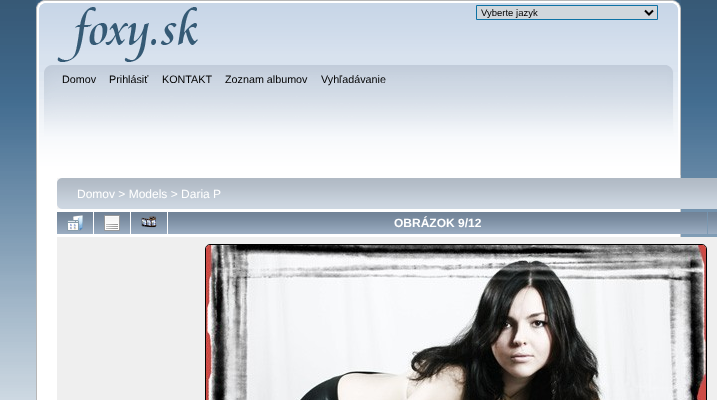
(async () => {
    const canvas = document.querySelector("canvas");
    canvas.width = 717;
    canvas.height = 400;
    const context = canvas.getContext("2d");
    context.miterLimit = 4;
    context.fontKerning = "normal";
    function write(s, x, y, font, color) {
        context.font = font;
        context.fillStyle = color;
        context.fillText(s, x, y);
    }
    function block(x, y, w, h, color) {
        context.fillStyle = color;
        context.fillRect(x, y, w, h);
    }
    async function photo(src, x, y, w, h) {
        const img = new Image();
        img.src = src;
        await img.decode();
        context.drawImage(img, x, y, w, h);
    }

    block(0, 0, 717, 400, "rgb(255, 255, 255)");
    await photo("media/1.png", 0, 0, 717, 400);
    await photo("media/2.png", 36, 0, 637, 65);
    await photo("media/3.png", 673, 0, 8, 65);
    await photo("media/4.png", 57, 7, 141, 55);
    context.fillStyle = "rgb(209, 215, 220)";
    context.beginPath();
    context.rect(476.5, 5.5, 181, 14);
    context.fill();
    context.strokeStyle = "rgb(14, 114, 164)";
    context.stroke();
    context.beginPath();
    context.moveTo(645, 10.5);
    context.lineTo(649, 14.5);
    context.lineTo(653, 10.5);
    context.strokeStyle = "rgb(0, 0, 0)";
    context.lineWidth = 2;
    context.stroke();
    write("Vyberte jazyk", 481, 16, "9.5px Liberation Sans", "rgb(0, 0, 0)");
    await photo("media/5.png", 36, 65, 631, 110);
    await photo("media/6.png", 667, 65, 14, 110);
    write("Domov", 62, 83, "10.75px Liberation Sans", "rgb(0, 0, 0)");
    write("Prihlásiť", 109, 83, "10.75px Liberation Sans", "rgb(0, 0, 0)");
    write("KONTAKT", 162, 83, "10.75px Liberation Sans", "rgb(0, 0, 0)");
    write("Zoznam albumov", 225, 83, "10.75px Liberation Sans", "rgb(0, 0, 0)");
    write("Vyhľadávanie", 321, 83, "10.75px Liberation Sans", "rgb(0, 0, 0)");
    block(37, 175, 643, 225, "rgb(255, 255, 255)");
    block(36, 175, 1, 225, "rgb(183, 183, 183)");
    block(680, 175, 1, 62, "rgb(206, 206, 206)");
    await photo("media/7.png", 57, 178, 660, 31);
    write("Domov > Models > Daria P", 77, 198, "12px Liberation Sans", "rgb(255, 255, 255)");
    await photo("media/8.png", 57, 212, 36, 22);
    await photo("media/9.png", 67, 215, 16, 16);
    await photo("media/8.png", 94, 212, 36, 22);
    await photo("media/10.png", 104, 215, 16, 16);
    await photo("media/8.png", 131, 212, 36, 22);
    await photo("media/11.png", 141, 216, 16, 12);
    await photo("media/12.png", 168, 212, 539, 22);
    write("OBRÁZOK 9/12", 394, 227, "bold 12px Liberation Sans", "rgb(255, 255, 255)");
    await photo("media/13.png", 708, 212, 9, 22);
    block(57, 237, 660, 163, "rgb(239, 239, 239)");
    context.beginPath();
    context.roundRect(205.5, 244.5, 501, 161, 4.5);
    context.lineWidth = 1;
    context.stroke();
    await photo("media/14.png", 206, 245, 500, 155);
})();
